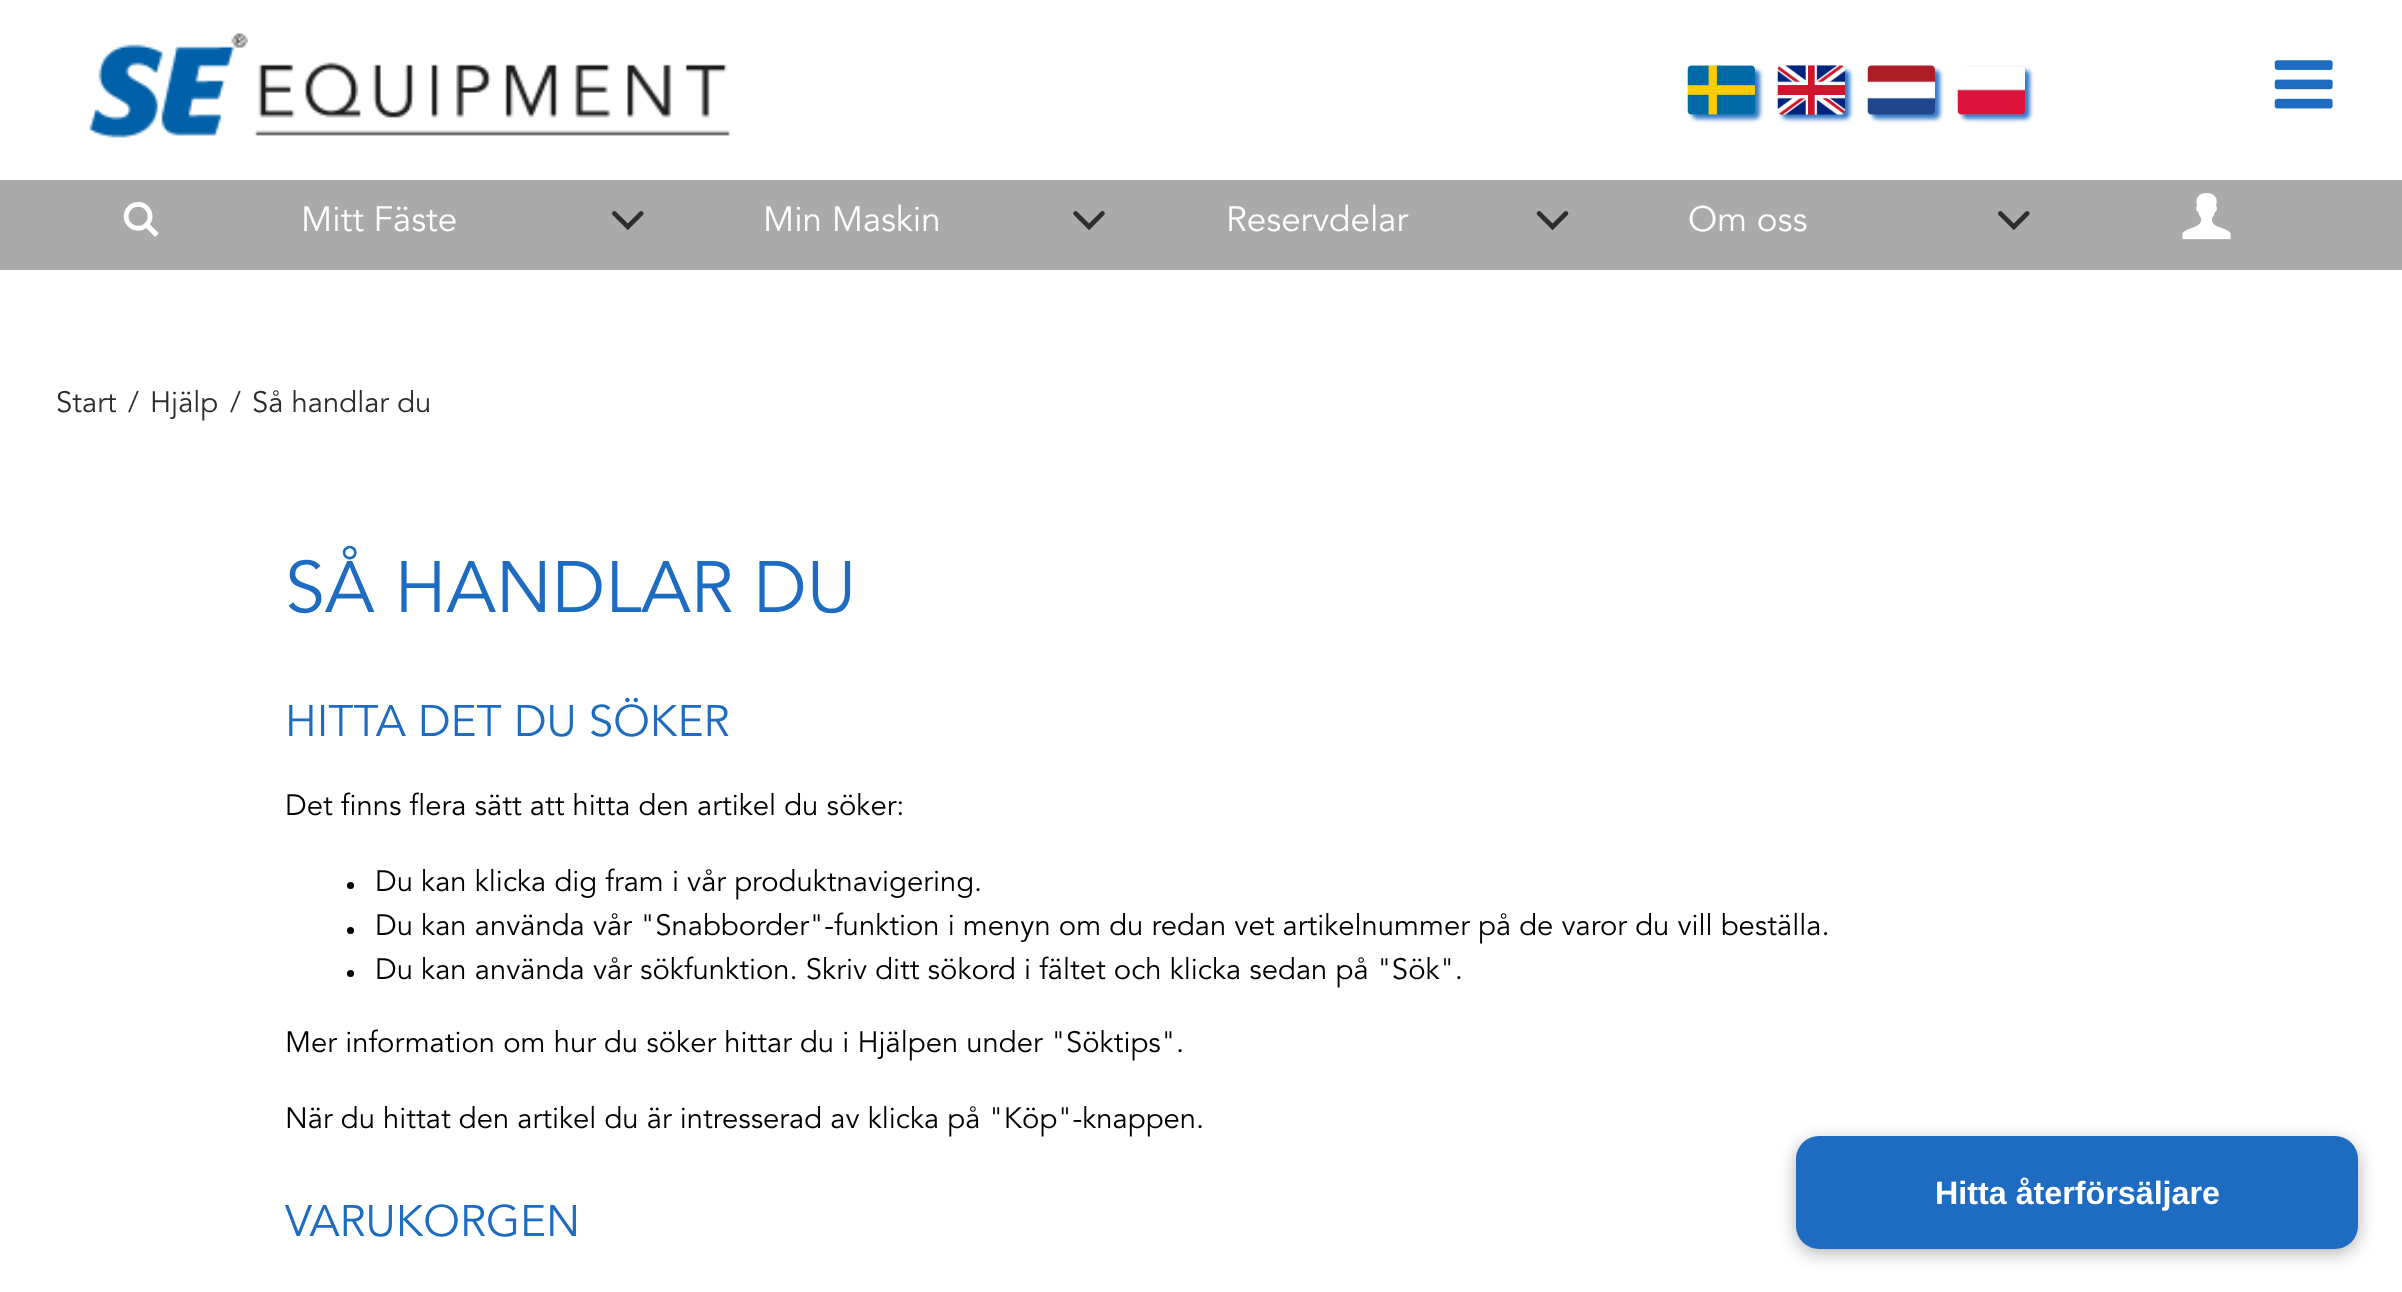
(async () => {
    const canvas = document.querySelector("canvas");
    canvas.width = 2402;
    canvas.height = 1292;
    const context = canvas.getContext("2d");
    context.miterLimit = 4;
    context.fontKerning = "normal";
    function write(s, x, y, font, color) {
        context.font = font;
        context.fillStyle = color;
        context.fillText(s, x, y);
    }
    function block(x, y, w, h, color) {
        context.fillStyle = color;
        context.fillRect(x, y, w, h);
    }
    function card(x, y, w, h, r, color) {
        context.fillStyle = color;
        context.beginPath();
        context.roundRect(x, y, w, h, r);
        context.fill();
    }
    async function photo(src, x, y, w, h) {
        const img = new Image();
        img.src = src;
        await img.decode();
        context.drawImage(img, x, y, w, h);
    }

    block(0, 0, 2402, 1292, "rgb(255, 255, 255)");
    await photo("media/1.png", 89, 33, 641, 105);
    context.fillStyle = "rgba(29, 108, 193, 0.9)";
    context.filter = "blur(2px)";
    context.beginPath();
    context.roundRect(1692, 70, 68, 49, 5);
    context.fill();
    context.filter = "none";
    await photo("media/2.png", 1687, 65, 68, 50);
    context.filter = "blur(2px)";
    context.beginPath();
    context.roundRect(1782, 70, 68, 49, 5);
    context.fill();
    context.filter = "none";
    await photo("media/3.png", 1777, 65, 68, 50);
    context.filter = "blur(2px)";
    context.beginPath();
    context.roundRect(1872, 70, 68, 49, 5);
    context.fill();
    context.filter = "none";
    await photo("media/4.png", 1867, 65, 68, 50);
    context.filter = "blur(2px)";
    context.beginPath();
    context.roundRect(1962, 70, 68, 49, 5);
    context.fill();
    context.filter = "none";
    await photo("media/5.png", 1957, 67, 68, 48);
    await photo("media/6.png", 2274, 60, 59, 49);
    block(0, 180, 2402, 90, "rgb(170, 170, 170)");
    await photo("media/7.png", 123, 202, 36, 35);
    write("Mitt Fäste", 301, 231, "35px Avenir", "rgb(255, 255, 255)");
    await photo("media/8.png", 612, 211, 32, 19);
    write("Min Maskin", 763, 231, "35px Avenir", "rgb(255, 255, 255)");
    await photo("media/9.png", 1073, 211, 32, 19);
    write("Reservdelar", 1226, 231, "35px Avenir", "rgb(255, 255, 255)");
    await photo("media/10.png", 1536, 211, 33, 19);
    write("Om oss", 1688, 231, "35px Avenir", "rgb(255, 255, 255)");
    await photo("media/8.png", 1998, 211, 32, 19);
    await photo("media/11.png", 2182, 193, 49, 47);
    write("Start", 56, 412, "29.25px Avenir", "rgb(45, 45, 45)");
    write("/", 128, 412, "29.25px Avenir", "rgb(45, 45, 45)");
    write("Hjälp", 150, 412, "29.25px Avenir", "rgb(45, 45, 45)");
    write("/", 230, 412, "29.25px Avenir", "rgb(45, 45, 45)");
    write("Så handlar du", 252, 412, "29.25px Avenir", "rgb(45, 45, 45)");
    write("SÅ HANDLAR DU", 285, 612, "72px Avenir", "rgb(29, 108, 193)");
    write("HITTA DET DU SÖKER", 285, 736, "43.9px Avenir", "rgb(29, 108, 193)");
    write("Det finns flera sätt att hitta den artikel du söker:", 285, 815, "29.25px Avenir", "rgb(0, 0, 0)");
    context.beginPath();
    context.arc(350.5, 885.5, 3.5, 0, Math.PI * 2);
    context.fill();
    write("Du kan klicka dig fram i vår produktnavigering.", 375, 891, "29.25px Avenir", "rgb(0, 0, 0)");
    context.beginPath();
    context.arc(350.5, 930.5, 3.5, 0, Math.PI * 2);
    context.fill();
    write("Du kan använda vår \"Snabborder\"-funktion i menyn om du redan vet artikelnummer på de varor du vill beställa.", 375, 935, "29.25px Avenir", "rgb(0, 0, 0)");
    context.beginPath();
    context.arc(350.5, 973.5, 3.5, 0, Math.PI * 2);
    context.fill();
    write("Du kan använda vår sökfunktion. Skriv ditt sökord i fältet och klicka sedan på \"Sök\".", 375, 979, "29.25px Avenir", "rgb(0, 0, 0)");
    write("Mer information om hur du söker hittar du i Hjälpen under \"Söktips\".", 285, 1052, "29.25px Avenir", "rgb(0, 0, 0)");
    write("När du hittat den artikel du är intresserad av klicka på \"Köp\"-knappen.", 285, 1128, "29.25px Avenir", "rgb(0, 0, 0)");
    write("VARUKORGEN", 285, 1236, "43.9px Avenir", "rgb(29, 108, 193)");
    context.fillStyle = "rgba(0, 0, 0, 0.3)";
    context.filter = "blur(9px)";
    context.beginPath();
    context.roundRect(1796, 1141, 562, 112, 23);
    context.fill();
    context.filter = "none";
    card(1796, 1136, 562, 113, 23, "rgb(29, 108, 193)");
    write("Hitta återförsäljare", 1935, 1204, "bold 32.25px Liberation Sans", "rgb(255, 255, 255)");
})();
